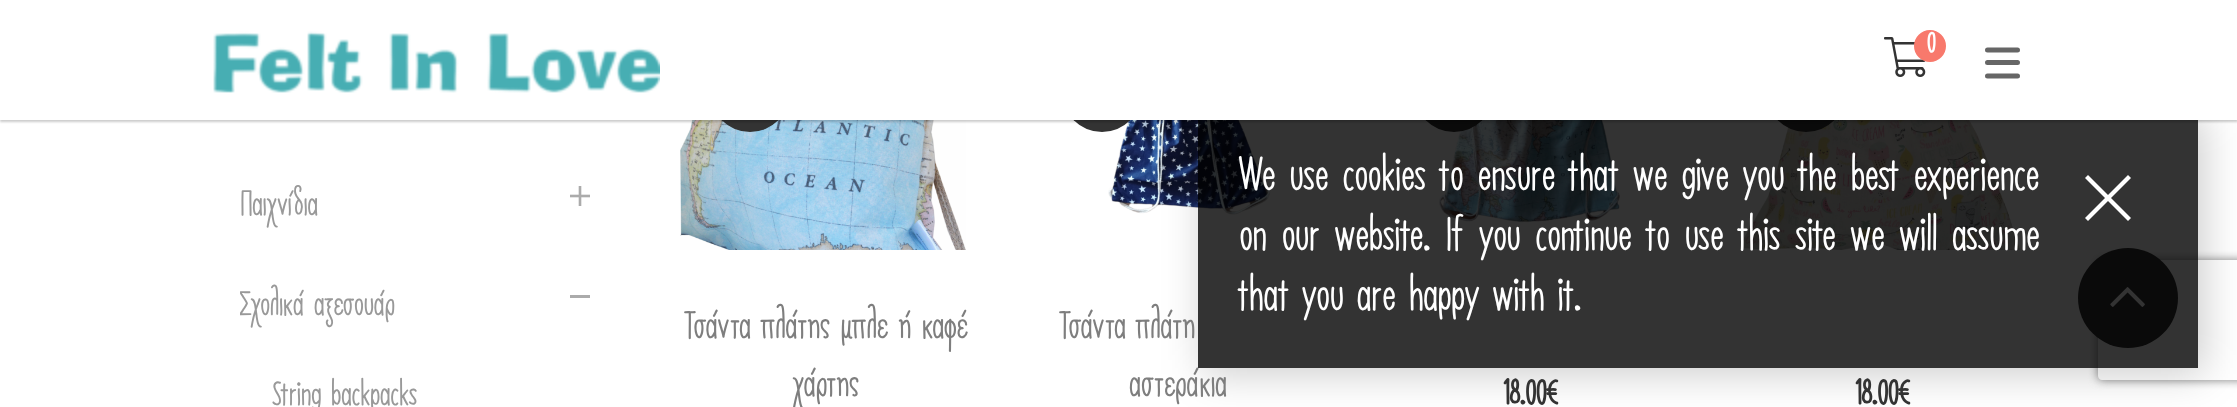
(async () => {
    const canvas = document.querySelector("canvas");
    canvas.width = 2237;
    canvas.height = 407;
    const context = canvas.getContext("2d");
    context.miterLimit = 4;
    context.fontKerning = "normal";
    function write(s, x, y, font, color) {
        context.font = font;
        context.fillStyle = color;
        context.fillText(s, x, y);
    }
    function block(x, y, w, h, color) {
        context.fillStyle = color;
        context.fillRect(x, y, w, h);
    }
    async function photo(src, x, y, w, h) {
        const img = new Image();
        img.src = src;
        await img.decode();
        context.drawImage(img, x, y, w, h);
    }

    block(0, 0, 2237, 407, "rgb(255, 255, 255)");
    await photo("media/5.png", 1108, 120, 163, 95);
    await photo("media/6.png", 1439, 120, 181, 103);
    context.fillStyle = "rgb(51, 51, 51)";
    context.beginPath();
    context.arc(1454, 92, 40, 0, Math.PI * 2);
    context.fill();
    await photo("media/7.png", 1741, 120, 279, 130);
    context.beginPath();
    context.arc(1806, 92, 40, 0, Math.PI * 2);
    context.fill();
    context.save();
    context.beginPath();
    context.moveTo(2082, 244);
    context.lineTo(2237, 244);
    context.lineTo(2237, 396);
    context.lineTo(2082, 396);
    context.closePath();
    context.moveTo(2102, 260);
    context.lineTo(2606, 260);
    context.bezierCurveTo(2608, 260, 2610, 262, 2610, 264);
    context.lineTo(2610, 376);
    context.bezierCurveTo(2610, 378, 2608, 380, 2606, 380);
    context.lineTo(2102, 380);
    context.bezierCurveTo(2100, 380, 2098, 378, 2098, 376);
    context.lineTo(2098, 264);
    context.bezierCurveTo(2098, 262, 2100, 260, 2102, 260);
    context.closePath();
    context.clip("evenodd");
    context.fillStyle = "rgb(128, 128, 128)";
    context.filter = "blur(5px)";
    context.beginPath();
    context.roundRect(2098, 260, 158, 120, 4);
    context.fill();
    context.filter = "none";
    context.restore();
    context.beginPath();
    context.arc(2128, 298, 50, 0, Math.PI * 2);
    context.fill();
    await photo("media/8.png", 2110, 287, 35, 20);
    context.save();
    context.beginPath();
    context.moveTo(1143, 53);
    context.lineTo(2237, 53);
    context.lineTo(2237, 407);
    context.lineTo(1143, 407);
    context.closePath();
    context.moveTo(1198, 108);
    context.lineTo(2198, 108);
    context.lineTo(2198, 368);
    context.lineTo(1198, 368);
    context.closePath();
    context.clip("evenodd");
    context.fillStyle = "rgba(0, 0, 0, 0.2)";
    context.filter = "blur(20px)";
    context.beginPath();
    context.rect(1204, 114, 1000, 260);
    context.fill();
    context.filter = "none";
    context.restore();
    write("αστεράκια", 1128, 396, "500 36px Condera", "rgb(126, 126, 126)");
    block(1198, 120, 1000, 248, "rgba(0, 0, 0, 0.8)");
    await photo("media/4.png", 680, 120, 286, 130);
    context.fillStyle = "rgb(51, 51, 51)";
    context.beginPath();
    context.arc(750, 92, 40, 0, Math.PI * 2);
    context.fill();
    context.beginPath();
    context.arc(1102, 92, 40, 0, Math.PI * 2);
    context.fill();
    context.fillStyle = "rgba(0, 0, 0, 0.2)";
    context.filter = "blur(1px)";
    context.beginPath();
    context.rect(0, 2, 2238, 120);
    context.fill();
    context.filter = "none";
    block(0, 0, 2237, 120, "rgb(255, 255, 255)");
    await photo("media/1.png", 213, 31, 447, 62);
    await photo("media/2.png", 1884, 37, 42, 40);
    context.fillStyle = "rgb(248, 121, 108)";
    context.beginPath();
    context.arc(1930, 46, 15, 0, Math.PI * 2);
    context.fill();
    context.strokeStyle = "rgb(248, 121, 108)";
    context.lineWidth = 2;
    context.stroke();
    write("0", 1926, 52, "bold 26px Condera", "rgb(255, 255, 255)");
    context.beginPath();
    context.moveTo(1987.5, 50);
    context.lineTo(2017.5, 50);
    context.moveTo(1987.5, 62.5);
    context.lineTo(2017.5, 62.5);
    context.moveTo(1987.5, 76);
    context.lineTo(2017.5, 76);
    context.strokeStyle = "rgb(102, 102, 102)";
    context.lineWidth = 5;
    context.lineCap = "round";
    context.stroke();
    context.wordSpacing = "1.1px";
    write("We use cookies to ensure that we give you the best experience", 1238, 190, "500 44px Condera", "rgb(255, 255, 255)");
    context.wordSpacing = "1.9px";
    write("on our website. If you continue to use this site we will assume", 1238, 250, "500 44px Condera", "rgb(255, 255, 255)");
    context.wordSpacing = "0px";
    write("that you are happy with it.", 1238, 310, "500 44px Condera", "rgb(255, 255, 255)");
    context.beginPath();
    context.moveTo(2085, 218);
    context.lineTo(2128, 175);
    context.lineTo(2131, 178);
    context.lineTo(2088, 221);
    context.closePath();
    context.fill();
    context.beginPath();
    context.moveTo(2128, 221);
    context.lineTo(2085, 178);
    context.lineTo(2088, 175);
    context.lineTo(2131, 218);
    context.closePath();
    context.fill();
    write("Παιχνίδια", 239, 215, "500 32px Condera", "rgb(153, 153, 153)");
    await photo("media/3.png", 570, 186, 20, 20);
    context.save();
    context.beginPath();
    context.rect(240, 0, 350, 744);
    context.clip();
    write("Σχολικά αξεσουάρ", 239, 315, "500 32px Condera", "rgb(153, 153, 153)");
    context.restore();
    block(570, 295, 20, 3, "rgb(171, 171, 171)");
    write("String backpacks", 271, 405, "500 32px Condera", "rgb(153, 153, 153)");
    write("Τσάντα πλάτης μπλε ή καφέ", 684, 338, "500 36px Condera", "rgb(126, 126, 126)");
    write("χάρτης", 793, 396, "500 36px Condera", "rgb(126, 126, 126)");
    write("Τσάντα πλάτη", 1059, 338, "500 36px Condera", "rgb(126, 126, 126)");
    write("18.00€", 1501, 404, "bold 32px Condera", "rgb(51, 51, 51)");
    write("18.00€", 1853, 404, "bold 32px Condera", "rgb(51, 51, 51)");
})();
